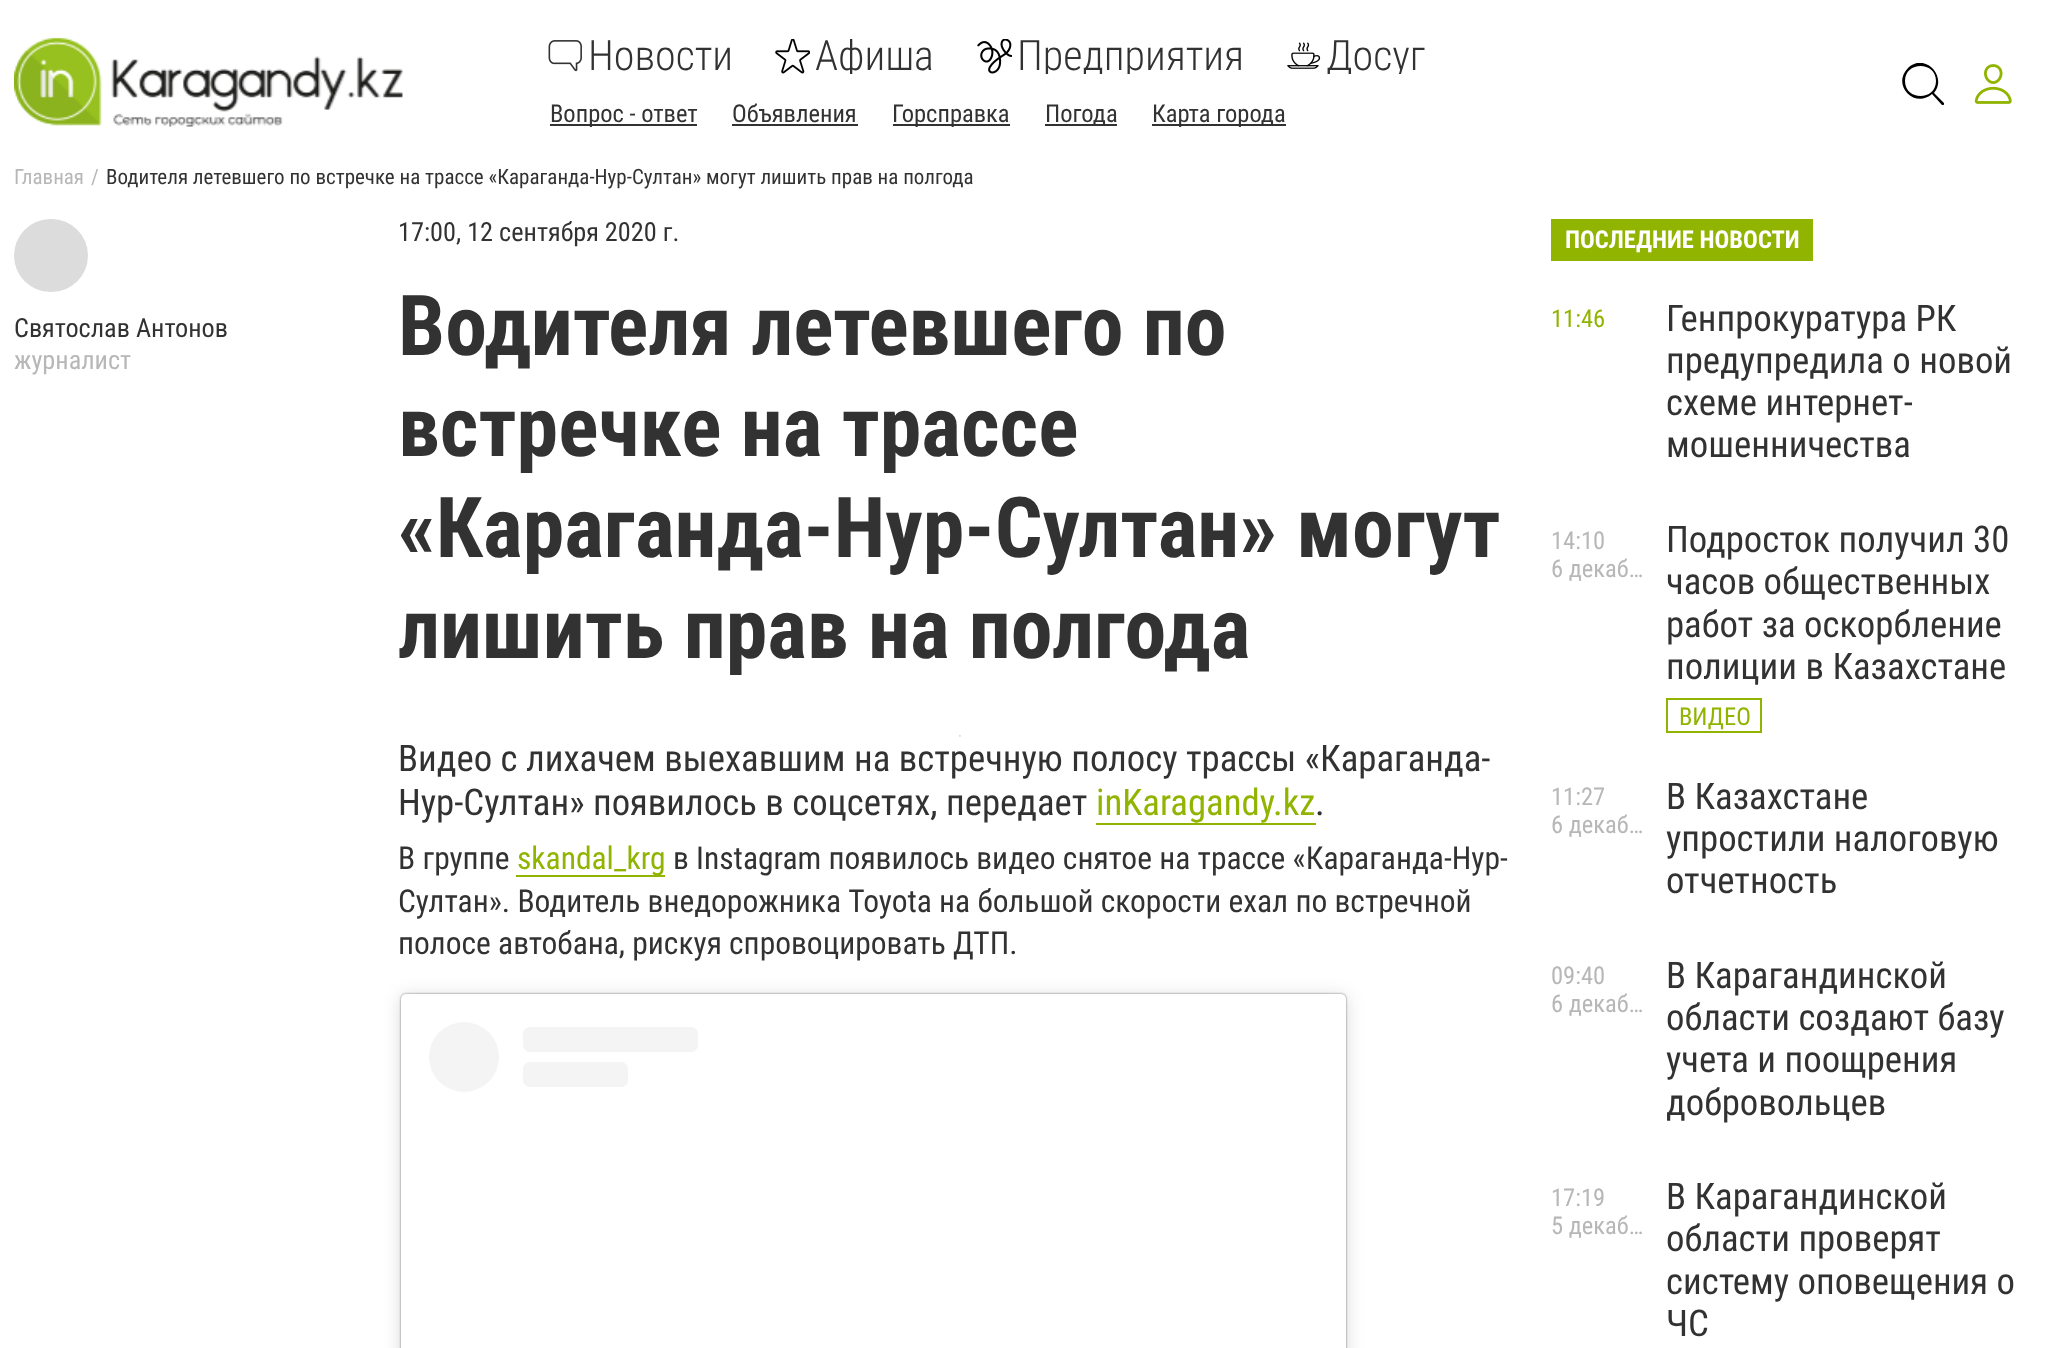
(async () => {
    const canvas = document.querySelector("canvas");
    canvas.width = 2049;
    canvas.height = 1348;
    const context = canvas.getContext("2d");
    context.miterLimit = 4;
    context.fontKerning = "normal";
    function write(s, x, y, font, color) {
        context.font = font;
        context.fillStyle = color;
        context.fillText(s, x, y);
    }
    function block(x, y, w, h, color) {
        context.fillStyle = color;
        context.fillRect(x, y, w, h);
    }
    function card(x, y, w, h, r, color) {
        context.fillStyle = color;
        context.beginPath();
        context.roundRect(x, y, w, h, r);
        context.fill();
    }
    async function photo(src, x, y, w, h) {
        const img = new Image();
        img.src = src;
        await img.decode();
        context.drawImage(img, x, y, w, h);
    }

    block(0, 0, 2049, 1348, "rgb(255, 255, 255)");
    await photo("media/1.png", 14, 37, 389, 90);
    await photo("media/2.png", 548, 40, 34, 32);
    write("Новости", 588, 70, "300 42px Roboto Condensed", "rgb(50, 50, 50)");
    await photo("media/3.png", 775, 39, 35, 35);
    context.save();
    context.beginPath();
    context.rect(775, 39, 160, 35);
    context.clip();
    write("Афиша", 815, 70, "300 42px Roboto Condensed", "rgb(50, 50, 50)");
    context.restore();
    await photo("media/4.png", 977, 39, 35, 35);
    context.save();
    context.beginPath();
    context.rect(977, 39, 267, 35);
    context.clip();
    write("Предприятия", 1017, 70, "300 42px Roboto Condensed", "rgb(50, 50, 50)");
    context.restore();
    await photo("media/5.png", 1287, 42, 34, 27);
    context.save();
    context.beginPath();
    context.rect(1286, 39, 140, 35);
    context.clip();
    write("Досуг", 1326, 70, "300 42px Roboto Condensed", "rgb(50, 50, 50)");
    context.restore();
    block(550, 124, 147, 2, "rgb(50, 50, 50)");
    write("Вопрос - ответ", 550, 122, "24.5px Roboto Condensed", "rgb(50, 50, 50)");
    write("Объявления", 732, 122, "24.5px Roboto Condensed", "rgb(50, 50, 50)");
    block(732, 124, 126, 2, "rgb(50, 50, 50)");
    block(893, 124, 117, 2, "rgb(50, 50, 50)");
    write("Горсправка", 892, 122, "24.5px Roboto Condensed", "rgb(50, 50, 50)");
    block(1045, 124, 72, 2, "rgb(50, 50, 50)");
    write("Погода", 1045, 122, "24.5px Roboto Condensed", "rgb(50, 50, 50)");
    block(1152, 124, 134, 2, "rgb(50, 50, 50)");
    write("Карта города", 1152, 122, "24.5px Roboto Condensed", "rgb(50, 50, 50)");
    context.save();
    context.beginPath();
    context.rect(1902, 63, 42, 42);
    context.clip();
    context.fillStyle = "rgb(0, 0, 0)";
    context.beginPath();
    context.moveTo(1944, 103);
    context.lineTo(1934, 93);
    context.bezierCurveTo(1948, 76, 1924, 52, 1908, 68);
    context.bezierCurveTo(1891, 85, 1915, 109, 1932, 94);
    context.lineTo(1942, 105);
    context.bezierCurveTo(1943, 106, 1945, 104, 1944, 103);
    context.closePath();
    context.moveTo(1905, 81);
    context.bezierCurveTo(1905, 61, 1936, 61, 1936, 81);
    context.bezierCurveTo(1936, 101, 1905, 101, 1905, 81);
    context.closePath();
    context.fill();
    context.restore();
    await photo("media/6.png", 1974, 64, 38, 40);
    write("Главная", 14, 184, "21px Roboto Condensed", "rgb(183, 183, 183)");
    write("/", 91, 184, "21px Roboto Condensed", "rgb(183, 183, 183)");
    write("Водителя летевшего по встречке на трассе «Караганда-Нур-Султан» могут лишить прав на полгода", 106, 184, "21px Roboto Condensed", "rgb(50, 50, 50)");
    card(14, 219, 74, 73, 36.5, "rgb(220, 220, 220)");
    write("Святослав Антонов", 14, 337, "26.25px Roboto Condensed", "rgb(50, 50, 50)");
    write("журналист", 14, 369, "26.25px Roboto Condensed", "rgb(183, 183, 183)");
    write("17:00, 12 сентября 2020 г.", 398, 241, "26.25px Roboto Condensed", "rgb(50, 50, 50)");
    write("Водителя летевшего по", 398, 355, "bold 84px Roboto Condensed", "rgb(50, 50, 50)");
    write("встречке на трассе", 398, 456, "bold 84px Roboto Condensed", "rgb(50, 50, 50)");
    write("«Караганда-Нур-Султан» могут", 398, 557, "bold 84px Roboto Condensed", "rgb(50, 50, 50)");
    write("лишить прав на полгода", 398, 658, "bold 84px Roboto Condensed", "rgb(50, 50, 50)");
    await photo("media/7.png", 959, 735, 2, 2);
    write("Видео с лихачем выехавшим на встречную полосу трассы «Караганда-", 398, 771, "36.75px Roboto Condensed", "rgb(50, 50, 50)");
    write("Нур-Султан» появилось в соцсетях, передает", 398, 815, "36.75px Roboto Condensed", "rgb(50, 50, 50)");
    write("inKaragandy.kz", 1096, 815, "36.75px Roboto Condensed", "rgb(144, 180, 0)");
    block(1096, 823, 220, 2, "rgb(144, 180, 0)");
    write(".", 1315, 815, "36.75px Roboto Condensed", "rgb(50, 50, 50)");
    write("В группе", 398, 869, "31.5px Roboto Condensed", "rgb(50, 50, 50)");
    block(516, 875, 149, 2, "rgb(144, 180, 0)");
    write("skandal_krg", 517, 869, "31.5px Roboto Condensed", "rgb(144, 180, 0)");
    write("в Instagram появилось видео снятое на трассе «Караганда-Нур-", 673, 869, "31.5px Roboto Condensed", "rgb(50, 50, 50)");
    write("Султан». Водитель внедорожника Toyota на большой скорости ехал по встречной", 398, 912, "31.5px Roboto Condensed", "rgb(50, 50, 50)");
    write("полосе автобана, рискуя спровоцировать ДТП.", 398, 954, "31.5px Roboto Condensed", "rgb(50, 50, 50)");
    context.fillStyle = "rgba(0, 0, 0, 0.15)";
    context.filter = "blur(9px)";
    context.beginPath();
    context.roundRect(401, 996, 945, 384, 5);
    context.fill();
    context.filter = "none";
    context.fillStyle = "rgba(0, 0, 0, 0.5)";
    context.filter = "blur(1px)";
    context.beginPath();
    context.roundRect(401, 994, 945, 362, 5);
    context.fill();
    context.filter = "none";
    card(401, 994, 945, 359, 5, "rgb(255, 255, 255)");
    context.fillStyle = "rgb(244, 244, 244)";
    context.beginPath();
    context.arc(464, 1057, 35, 0, Math.PI * 2);
    context.fill();
    card(523, 1027, 175, 25, 7, "rgb(244, 244, 244)");
    card(523, 1062, 105, 25, 7, "rgb(244, 244, 244)");
    block(1551, 219, 262, 42, "rgb(144, 180, 0)");
    write("ПОСЛЕДНИЕ НОВОСТИ", 1565, 248, "bold 24.5px Roboto Condensed", "rgb(255, 255, 255)");
    write("11:46", 1551, 327, "24.5px Roboto Condensed", "rgb(144, 180, 0)");
    write("Генпрокуратура РК", 1666, 331, "36.75px Roboto Condensed", "rgb(50, 50, 50)");
    write("предупредила о новой", 1666, 373, "36.75px Roboto Condensed", "rgb(50, 50, 50)");
    write("схеме интернет-", 1666, 415, "36.75px Roboto Condensed", "rgb(50, 50, 50)");
    write("мошенничества", 1666, 457, "36.75px Roboto Condensed", "rgb(50, 50, 50)");
    write("14:10", 1551, 549, "24.5px Roboto Condensed", "rgb(183, 183, 183)");
    write("6 декаб…", 1551, 577, "24.5px Roboto Condensed", "rgb(183, 183, 183)");
    write("Подросток получил 30", 1666, 552, "36.75px Roboto Condensed", "rgb(50, 50, 50)");
    write("часов общественных", 1666, 594, "36.75px Roboto Condensed", "rgb(50, 50, 50)");
    write("работ за оскорбление", 1666, 637, "36.75px Roboto Condensed", "rgb(50, 50, 50)");
    write("полиции в Казахстане", 1666, 679, "36.75px Roboto Condensed", "rgb(50, 50, 50)");
    context.strokeStyle = "rgb(144, 180, 0)";
    context.lineWidth = 2;
    context.strokeRect(1667, 699, 94, 33);
    write("ВИДЕО", 1679, 725, "24.5px Roboto Condensed", "rgb(144, 180, 0)");
    write("11:27", 1551, 805, "24.5px Roboto Condensed", "rgb(183, 183, 183)");
    write("6 декаб…", 1551, 833, "24.5px Roboto Condensed", "rgb(183, 183, 183)");
    write("В Казахстане", 1666, 809, "36.75px Roboto Condensed", "rgb(50, 50, 50)");
    write("упростили налоговую", 1666, 851, "36.75px Roboto Condensed", "rgb(50, 50, 50)");
    write("отчетность", 1666, 893, "36.75px Roboto Condensed", "rgb(50, 50, 50)");
    write("09:40", 1551, 984, "24.5px Roboto Condensed", "rgb(183, 183, 183)");
    write("6 декаб…", 1551, 1012, "24.5px Roboto Condensed", "rgb(183, 183, 183)");
    write("В Карагандинской", 1666, 988, "36.75px Roboto Condensed", "rgb(50, 50, 50)");
    write("области создают базу", 1666, 1030, "36.75px Roboto Condensed", "rgb(50, 50, 50)");
    write("учета и поощрения", 1666, 1072, "36.75px Roboto Condensed", "rgb(50, 50, 50)");
    write("добровольцев", 1666, 1115, "36.75px Roboto Condensed", "rgb(50, 50, 50)");
    write("17:19", 1551, 1206, "24.5px Roboto Condensed", "rgb(183, 183, 183)");
    write("5 декаб…", 1551, 1234, "24.5px Roboto Condensed", "rgb(183, 183, 183)");
    write("В Карагандинской", 1666, 1209, "36.75px Roboto Condensed", "rgb(50, 50, 50)");
    write("области проверят", 1666, 1251, "36.75px Roboto Condensed", "rgb(50, 50, 50)");
    write("систему оповещения о", 1666, 1294, "36.75px Roboto Condensed", "rgb(50, 50, 50)");
    write("ЧС", 1666, 1336, "36.75px Roboto Condensed", "rgb(50, 50, 50)");
})();
